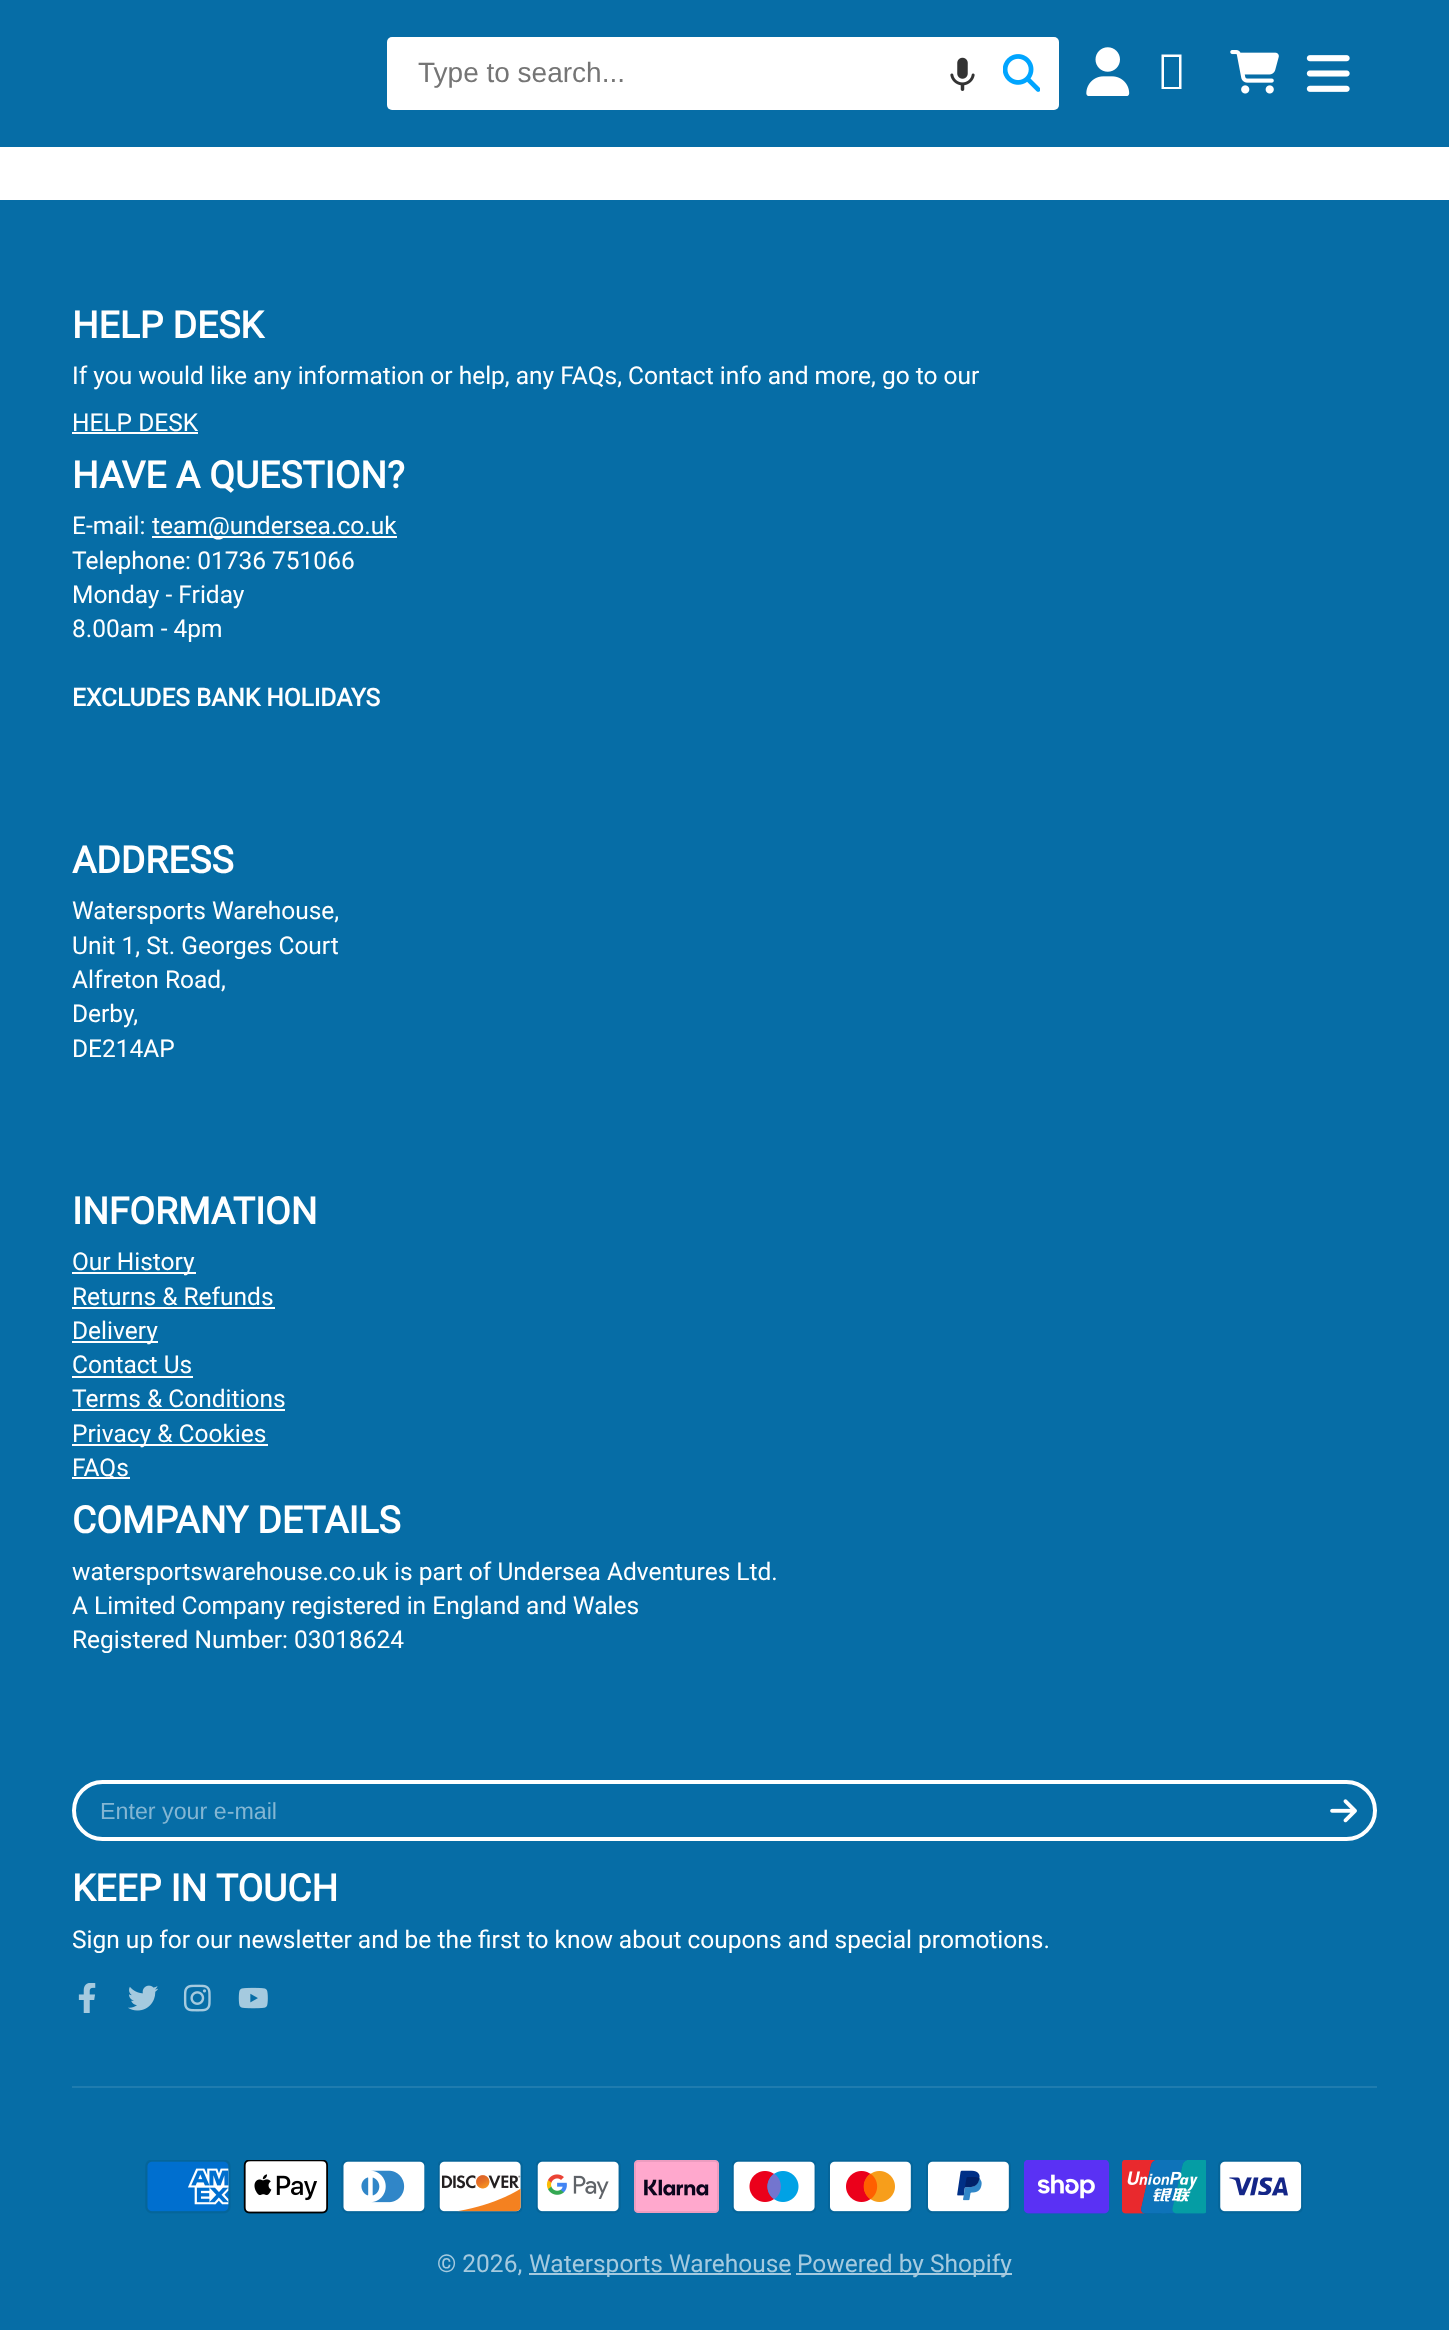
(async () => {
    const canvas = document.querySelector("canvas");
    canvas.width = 1449;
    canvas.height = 2330;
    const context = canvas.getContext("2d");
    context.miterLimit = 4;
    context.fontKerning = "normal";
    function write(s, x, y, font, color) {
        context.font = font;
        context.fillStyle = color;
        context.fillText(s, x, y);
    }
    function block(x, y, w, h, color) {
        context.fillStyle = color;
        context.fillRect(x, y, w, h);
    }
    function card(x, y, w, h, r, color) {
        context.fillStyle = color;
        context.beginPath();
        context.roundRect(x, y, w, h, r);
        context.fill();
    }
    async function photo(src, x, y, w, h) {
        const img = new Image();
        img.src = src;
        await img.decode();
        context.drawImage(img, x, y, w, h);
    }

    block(0, 0, 1449, 2330, "rgb(255, 255, 255)");
    block(0, 0, 1449, 147, "rgb(6, 109, 166)");
    card(387, 37, 672, 73, 5, "rgb(255, 255, 255)");
    write("Type to search...", 418, 82, "28px Liberation Sans", "rgb(117, 117, 117)");
    await photo("media/1.png", 950, 57, 25, 34);
    await photo("media/2.png", 1003, 54, 37, 38);
    await photo("media/3.png", 1086, 47, 44, 49);
    context.fillStyle = "rgb(255, 255, 255)";
    context.beginPath();
    context.moveTo(1161.5, 89);
    context.lineTo(1161.5, 54.5);
    context.lineTo(1181.5, 54.5);
    context.lineTo(1181.5, 89);
    context.closePath();
    context.moveTo(1164, 87);
    context.lineTo(1179, 87);
    context.lineTo(1179, 57);
    context.lineTo(1164, 57);
    context.closePath();
    context.fill();
    await photo("media/4.png", 1230, 50, 49, 44);
    await photo("media/5.png", 1306, 55, 44, 37);
    block(0, 200, 1449, 2130, "rgb(6, 109, 166)");
    write("HELP DESK", 72, 338, "bold 37.25px Roboto", "rgb(255, 255, 255)");
    write("If you would like any information or help, any FAQs, Contact info and more, go to our", 72, 384, "24.5px Roboto", "rgb(255, 255, 255)");
    write("HELP DESK", 72, 431, "24.5px Roboto", "rgb(255, 255, 255)");
    block(72, 432, 126, 2, "rgb(255, 255, 255)");
    write("HAVE A QUESTION?", 72, 488, "bold 37.25px Roboto", "rgb(255, 255, 255)");
    write("E-mail:", 72, 534, "24.5px Roboto", "rgb(255, 255, 255)");
    block(152, 536, 245, 2, "rgb(255, 255, 255)");
    write("team@undersea.co.uk", 152, 534, "24.5px Roboto", "rgb(255, 255, 255)");
    write("Telephone: 01736 751066", 72, 569, "24.5px Roboto", "rgb(255, 255, 255)");
    write("Monday - Friday", 72, 603, "24.5px Roboto", "rgb(255, 255, 255)");
    write("8.00am - 4pm", 72, 637, "24.5px Roboto", "rgb(255, 255, 255)");
    write("EXCLUDES BANK HOLIDAYS", 72, 706, "bold 24.5px Roboto", "rgb(255, 255, 255)");
    write("ADDRESS", 72, 873, "bold 37.25px Roboto", "rgb(255, 255, 255)");
    write("Watersports Warehouse,", 72, 919, "24.5px Roboto", "rgb(255, 255, 255)");
    write("Unit 1, St. Georges Court", 72, 954, "24.5px Roboto", "rgb(255, 255, 255)");
    write("Alfreton Road,", 72, 988, "24.5px Roboto", "rgb(255, 255, 255)");
    write("Derby,", 72, 1022, "24.5px Roboto", "rgb(255, 255, 255)");
    write("DE214AP", 72, 1057, "24.5px Roboto", "rgb(255, 255, 255)");
    write("INFORMATION", 72, 1224, "bold 37.25px Roboto", "rgb(255, 255, 255)");
    block(72, 1272, 124, 2, "rgb(255, 255, 255)");
    write("Our History", 72, 1270, "24.5px Roboto", "rgb(255, 255, 255)");
    write("Returns & Refunds", 72, 1305, "24.5px Roboto", "rgb(255, 255, 255)");
    block(72, 1307, 203, 2, "rgb(255, 255, 255)");
    block(72, 1341, 86, 2, "rgb(255, 255, 255)");
    write("Delivery", 72, 1339, "24.5px Roboto", "rgb(255, 255, 255)");
    write("Contact Us", 72, 1373, "24.5px Roboto", "rgb(255, 255, 255)");
    block(72, 1376, 121, 2, "rgb(255, 255, 255)");
    write("Terms & Conditions", 72, 1407, "24.5px Roboto", "rgb(255, 255, 255)");
    block(72, 1409, 213, 2, "rgb(255, 255, 255)");
    block(72, 1444, 196, 2, "rgb(255, 255, 255)");
    write("Privacy & Cookies", 72, 1442, "24.5px Roboto", "rgb(255, 255, 255)");
    block(72, 1477, 58, 2, "rgb(255, 255, 255)");
    write("FAQs", 72, 1476, "24.5px Roboto", "rgb(255, 255, 255)");
    write("COMPANY DETAILS", 72, 1533, "bold 37.25px Roboto", "rgb(255, 255, 255)");
    write("watersportswarehouse.co.uk is part of Undersea Adventures Ltd.", 72, 1580, "24.5px Roboto", "rgb(255, 255, 255)");
    write("A Limited Company registered in England and Wales", 72, 1614, "24.5px Roboto", "rgb(255, 255, 255)");
    write("Registered Number: 03018624", 72, 1648, "24.5px Roboto", "rgb(255, 255, 255)");
    context.beginPath();
    context.roundRect(74, 1782, 1301, 57, 28.5);
    context.strokeStyle = "rgb(255, 255, 255)";
    context.lineWidth = 4;
    context.stroke();
    write("Enter your e-mail", 100, 1819, "23.25px Liberation Sans", "rgb(131, 182, 211)");
    await photo("media/6.png", 1330, 1799, 27, 24);
    write("KEEP IN TOUCH", 72, 1901, "bold 37.25px Roboto", "rgb(255, 255, 255)");
    write("Sign up for our newsletter and be the first to know about coupons and special promotions.", 72, 1948, "24.5px Roboto", "rgb(255, 255, 255)");
    await photo("media/7.png", 78, 1983, 18, 30);
    await photo("media/8.png", 128, 1985, 30, 26);
    await photo("media/9.png", 183, 1984, 28, 28);
    await photo("media/10.png", 238, 1987, 30, 22);
    block(72, 2086, 1305, 2, "rgb(31, 124, 175)");
    await photo("media/11.png", 145, 2160, 86, 54);
    await photo("media/12.png", 243, 2160, 85, 54);
    await photo("media/13.png", 341, 2160, 84, 54);
    await photo("media/14.png", 438, 2160, 85, 54);
    await photo("media/15.png", 536, 2160, 85, 54);
    await photo("media/16.png", 634, 2160, 85, 53);
    await photo("media/17.png", 732, 2160, 84, 54);
    await photo("media/18.png", 828, 2160, 85, 54);
    await photo("media/19.png", 926, 2160, 85, 54);
    await photo("media/20.png", 1024, 2160, 86, 54);
    await photo("media/21.png", 1122, 2160, 84, 54);
    await photo("media/22.png", 1218, 2160, 85, 54);
    write("© 2026,", 437, 2272, "24.5px Roboto", "rgb(165, 202, 223)");
    block(529, 2273, 262, 2, "rgb(165, 202, 223)");
    write("Watersports Warehouse", 529, 2272, "24.5px Roboto", "rgb(165, 202, 223)");
    block(796, 2273, 216, 2, "rgb(165, 202, 223)");
    write("Powered by Shopify", 797, 2272, "24.5px Roboto", "rgb(165, 202, 223)");
})();
